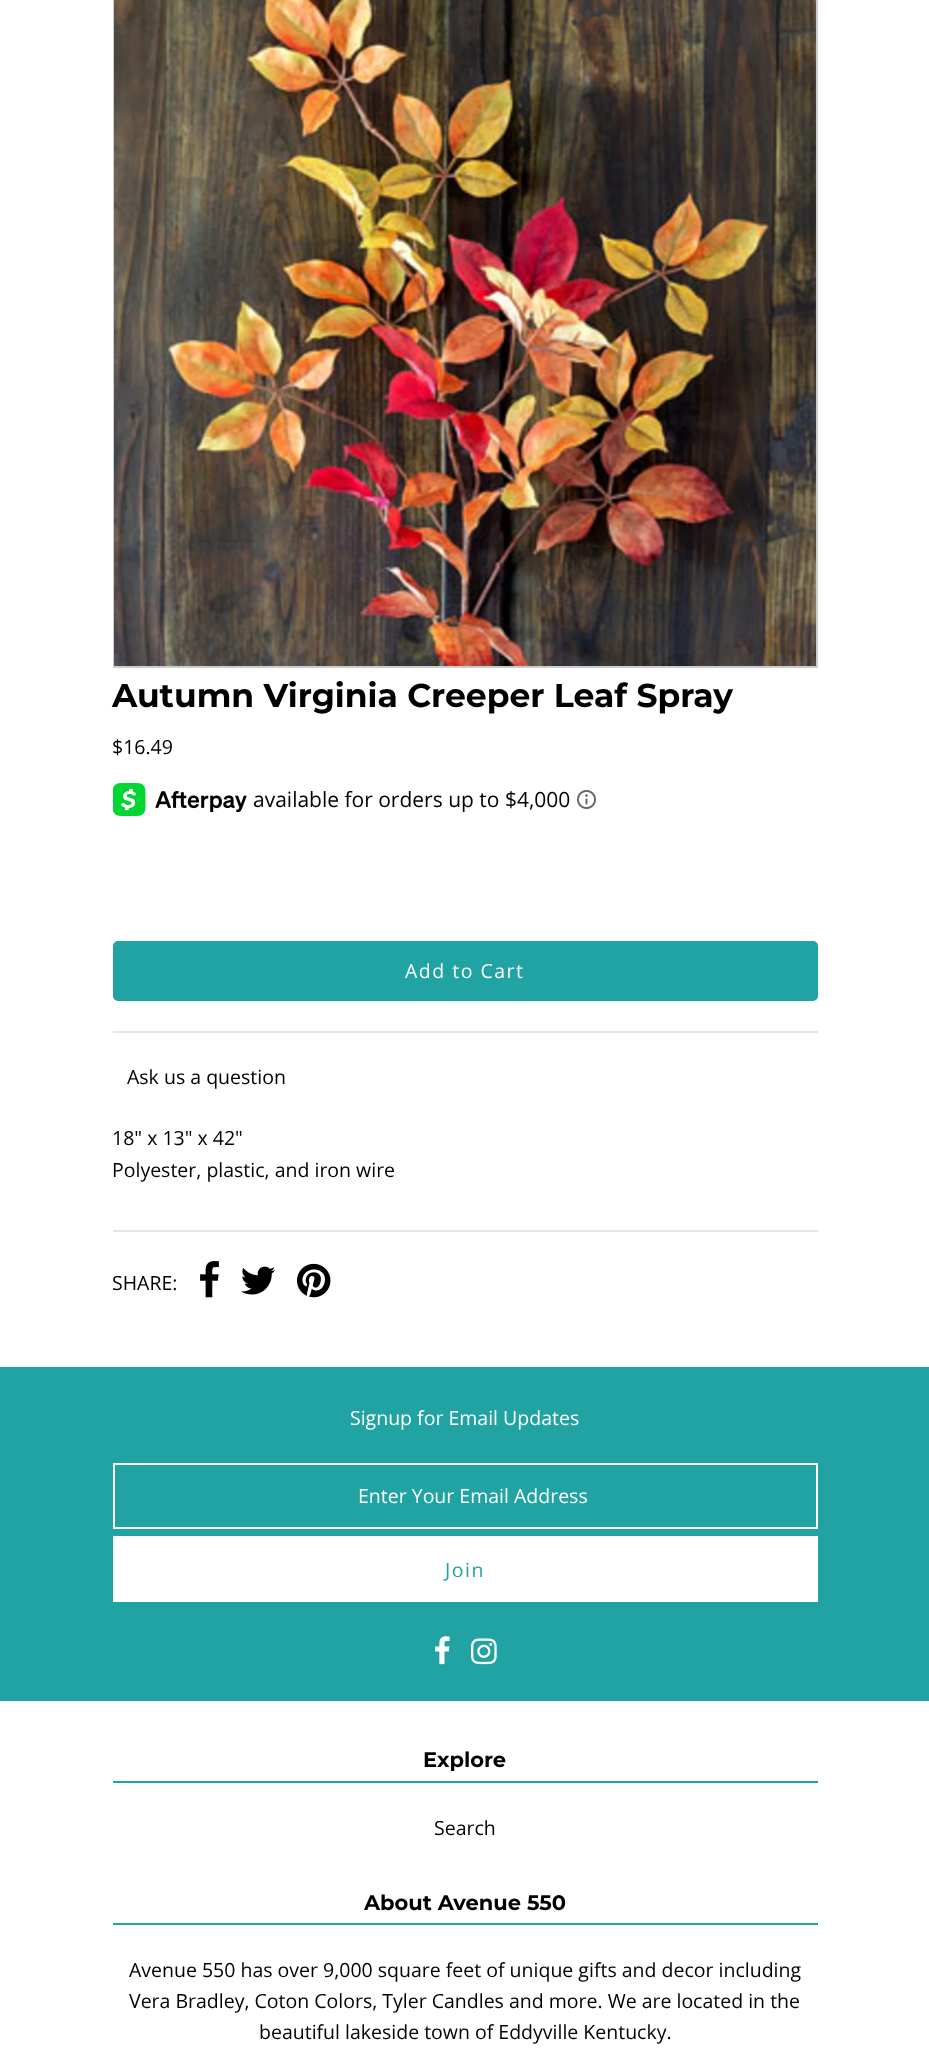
(async () => {
    const canvas = document.querySelector("canvas");
    canvas.width = 929;
    canvas.height = 2062;
    const context = canvas.getContext("2d");
    context.miterLimit = 4;
    context.fontKerning = "normal";
    function write(s, x, y, font, color) {
        context.font = font;
        context.fillStyle = color;
        context.fillText(s, x, y);
    }
    function block(x, y, w, h, color) {
        context.fillStyle = color;
        context.fillRect(x, y, w, h);
    }
    function card(x, y, w, h, r, color) {
        context.fillStyle = color;
        context.beginPath();
        context.roundRect(x, y, w, h, r);
        context.fill();
    }
    async function photo(src, x, y, w, h) {
        const img = new Image();
        img.src = src;
        await img.decode();
        context.drawImage(img, x, y, w, h);
    }

    block(0, 0, 929, 2062, "rgb(255, 255, 255)");
    context.strokeStyle = "rgb(204, 204, 204)";
    context.lineWidth = 2;
    context.strokeRect(114, -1, 703, 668);
    await photo("media/1.png", 114, 0, 702, 666);
    write("Autumn Virginia Creeper Leaf Spray", 112, 707, "bold 33px Montserrat", "rgb(0, 0, 0)");
    write("$16.49", 112, 754, "19.5px Open Sans", "rgb(0, 0, 0)");
    await photo("media/2.png", 113, 783, 134, 33);
    write("available for orders up to $4,000", 253, 807, "21px Open Sans", "rgb(0, 0, 0)");
    await photo("media/3.png", 577, 790, 19, 19);
    block(113, 1031, 705, 2, "rgb(229, 229, 229)");
    card(113, 941, 705, 60, 5, "rgb(33, 163, 163)");
    context.letterSpacing = "1.5px";
    write("Add to Cart", 405, 978, "19.5px Open Sans", "rgb(255, 255, 255)");
    context.letterSpacing = "0px";
    write("Ask us a question", 127, 1084, "19.5px Open Sans", "rgb(0, 0, 0)");
    write("18\" x 13\" x 42\"", 112, 1145, "19.5px Open Sans", "rgb(0, 0, 0)");
    write("Polyester, plastic, and iron wire", 112, 1177, "19.5px Open Sans", "rgb(0, 0, 0)");
    block(113, 1230, 705, 2, "rgb(229, 229, 229)");
    write("SHARE:", 112, 1290, "19.5px Open Sans", "rgb(0, 0, 0)");
    await photo("media/4.png", 200, 1261, 19, 37);
    await photo("media/5.png", 241, 1266, 35, 29);
    await photo("media/6.png", 297, 1263, 34, 35);
    block(0, 1367, 929, 334, "rgb(33, 163, 163)");
    write("Signup for Email Updates", 350, 1425, "19.5px Open Sans", "rgb(255, 255, 255)");
    context.strokeStyle = "rgb(255, 255, 255)";
    context.strokeRect(114, 1464, 703, 64);
    write("Enter Your Email Address", 358, 1503, "19.5px Open Sans", "rgb(255, 255, 255)");
    block(113, 1536, 705, 66, "rgb(255, 255, 255)");
    context.letterSpacing = "1.5px";
    write("Join", 445, 1577, "19.5px Open Sans", "rgb(33, 163, 163)");
    await photo("media/7.png", 435, 1636, 15, 29);
    await photo("media/8.png", 471, 1638, 26, 27);
    block(113, 1781, 705, 2, "rgb(33, 163, 163)");
    context.letterSpacing = "0px";
    write("Explore", 423, 1767, "bold 21px Montserrat", "rgb(0, 0, 0)");
    write("Search", 434, 1835, "19.5px Open Sans", "rgb(0, 0, 0)");
    block(113, 1923, 705, 2, "rgb(33, 163, 163)");
    write("About Avenue 550", 364, 1910, "bold 21px Montserrat", "rgb(0, 0, 0)");
    write("Avenue 550 has over 9,000 square feet of unique gifts and decor including", 129, 1977, "19.5px Open Sans", "rgb(0, 0, 0)");
    write("Vera Bradley, Coton Colors, Tyler Candles and more. We are located in the", 129, 2008, "19.5px Open Sans", "rgb(0, 0, 0)");
    write("beautiful lakeside town of Eddyville Kentucky.", 259, 2039, "19.5px Open Sans", "rgb(0, 0, 0)");
})();
